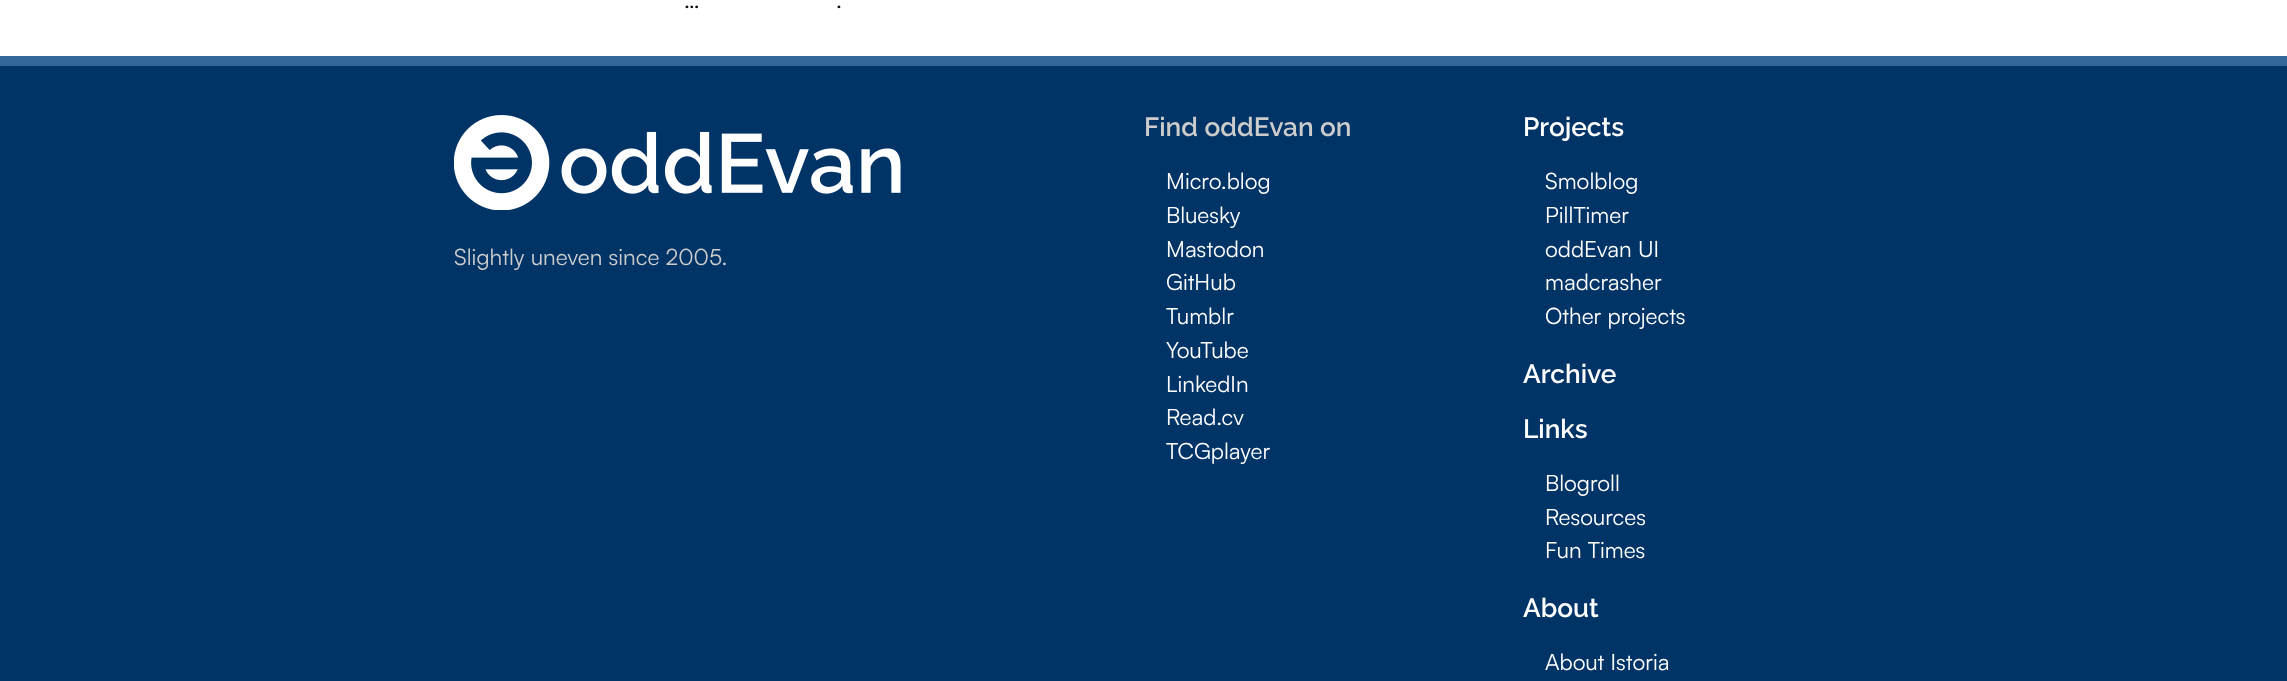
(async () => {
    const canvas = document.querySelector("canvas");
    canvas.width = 2287;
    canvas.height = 681;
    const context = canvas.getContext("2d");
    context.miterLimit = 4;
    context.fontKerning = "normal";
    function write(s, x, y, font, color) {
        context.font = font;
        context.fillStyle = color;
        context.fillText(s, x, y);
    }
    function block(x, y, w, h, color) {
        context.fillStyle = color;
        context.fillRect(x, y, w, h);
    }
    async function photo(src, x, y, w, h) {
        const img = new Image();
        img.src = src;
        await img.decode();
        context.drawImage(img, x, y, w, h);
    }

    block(0, 0, 2287, 681, "rgb(255, 255, 255)");
    write("…", 684, 8, "22.5px Satoshi", "rgb(0, 0, 0)");
    write(".", 836, 8, "22.5px Satoshi", "rgb(0, 0, 0)");
    block(0, 66, 2287, 615, "rgb(0, 51, 102)");
    block(0, 56, 2287, 10, "rgb(51, 102, 153)");
    await photo("media/1.png", 454, 115, 447, 95);
    write("Slightly uneven since 2005.", 454, 265, "22.5px Satoshi", "rgb(204, 204, 204)");
    write("Find oddEvan on", 1144, 136, "600 26.25px Raleway", "rgb(204, 204, 204)");
    write("Micro.blog", 1166, 189, "22.5px Satoshi", "rgb(255, 255, 255)");
    write("Bluesky", 1166, 223, "22.5px Satoshi", "rgb(255, 255, 255)");
    write("Mastodon", 1166, 257, "22.5px Satoshi", "rgb(255, 255, 255)");
    write("GitHub", 1166, 290, "22.5px Satoshi", "rgb(255, 255, 255)");
    write("Tumblr", 1166, 324, "22.5px Satoshi", "rgb(255, 255, 255)");
    write("YouTube", 1166, 358, "22.5px Satoshi", "rgb(255, 255, 255)");
    write("LinkedIn", 1166, 392, "22.5px Satoshi", "rgb(255, 255, 255)");
    write("Read.cv", 1166, 425, "22.5px Satoshi", "rgb(255, 255, 255)");
    write("TCGplayer", 1166, 459, "22.5px Satoshi", "rgb(255, 255, 255)");
    write("Projects", 1523, 136, "600 26.25px Raleway", "rgb(255, 255, 255)");
    write("Smolblog", 1545, 189, "22.5px Satoshi", "rgb(255, 255, 255)");
    write("PillTimer", 1545, 223, "22.5px Satoshi", "rgb(255, 255, 255)");
    write("oddEvan UI", 1545, 257, "22.5px Satoshi", "rgb(255, 255, 255)");
    write("madcrasher", 1545, 290, "22.5px Satoshi", "rgb(255, 255, 255)");
    write("Other projects", 1545, 324, "22.5px Satoshi", "rgb(255, 255, 255)");
    write("Archive", 1523, 383, "600 26.25px Raleway", "rgb(255, 255, 255)");
    write("Links", 1523, 438, "600 26.25px Raleway", "rgb(255, 255, 255)");
    write("Blogroll", 1545, 491, "22.5px Satoshi", "rgb(255, 255, 255)");
    write("Resources", 1545, 525, "22.5px Satoshi", "rgb(255, 255, 255)");
    write("Fun Times", 1545, 558, "22.5px Satoshi", "rgb(255, 255, 255)");
    write("About", 1523, 617, "600 26.25px Raleway", "rgb(255, 255, 255)");
    write("About Istoria", 1545, 670, "22.5px Satoshi", "rgb(255, 255, 255)");
})();
